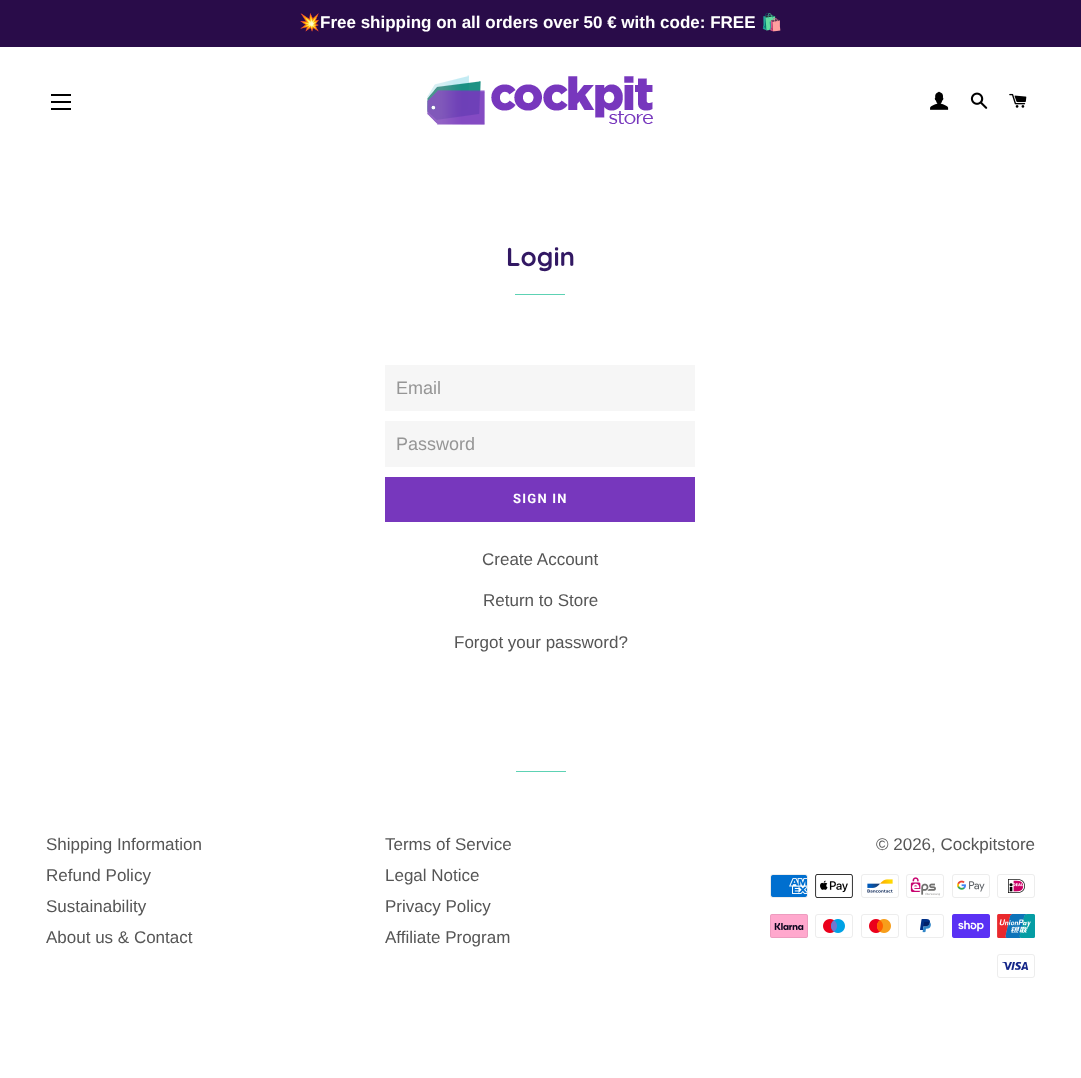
(async () => {
    const canvas = document.querySelector("canvas");
    canvas.width = 1081;
    canvas.height = 1078;
    const context = canvas.getContext("2d");
    context.miterLimit = 4;
    context.fontKerning = "normal";
    function write(s, x, y, font, color) {
        context.font = font;
        context.fillStyle = color;
        context.fillText(s, x, y);
    }
    function block(x, y, w, h, color) {
        context.fillStyle = color;
        context.fillRect(x, y, w, h);
    }
    async function photo(src, x, y, w, h) {
        const img = new Image();
        img.src = src;
        await img.decode();
        context.drawImage(img, x, y, w, h);
    }

    block(0, 0, 1081, 1078, "rgb(255, 255, 255)");
    block(0, 0, 1081, 47, "rgb(41, 12, 73)");
    write("💥", 299, 28, "bold 17px Noto Color Emoji", "rgb(255, 255, 255)");
    write("Free shipping on all orders over 50 € with code: FREE", 320, 28, "bold 17px Liberation Sans", "rgb(255, 255, 255)");
    write("🛍️", 761, 28, "bold 17px Noto Color Emoji", "rgb(255, 255, 255)");
    block(51, 94, 20, 2, "rgb(0, 0, 0)");
    block(51, 101, 20, 2, "rgb(0, 0, 0)");
    block(51, 108, 20, 2, "rgb(0, 0, 0)");
    await photo("media/1.png", 427, 75, 226, 50);
    await photo("media/2.png", 930, 91, 19, 19);
    await photo("media/3.png", 970, 92, 18, 17);
    await photo("media/4.png", 1009, 93, 18, 15);
    write("Login", 506, 266, "bold 26px Quicksand", "rgb(50, 24, 99)");
    block(515, 294, 50, 1, "rgb(93, 210, 180)");
    block(385, 365, 310, 46, "rgb(246, 246, 246)");
    write("Email", 396, 394, "18px Liberation Sans", "rgb(150, 150, 150)");
    block(385, 421, 310, 46, "rgb(246, 246, 246)");
    write("Password", 396, 450, "18px Liberation Sans", "rgb(150, 150, 150)");
    block(385, 477, 310, 45, "rgb(119, 55, 189)");
    context.letterSpacing = "1.25px";
    write("SIGN IN", 513, 503, "bold 13px Roboto", "rgb(255, 255, 255)");
    context.letterSpacing = "0px";
    write("Create Account", 482, 565, "17px Liberation Sans", "rgb(86, 86, 86)");
    write("Return to Store", 483, 606, "17px Liberation Sans", "rgb(86, 86, 86)");
    write("Forgot your password?", 454, 648, "17px Liberation Sans", "rgb(86, 86, 86)");
    block(516, 771, 50, 1, "rgb(93, 210, 180)");
    write("Shipping Information", 46, 850, "17px Liberation Sans", "rgb(86, 86, 86)");
    write("Refund Policy", 46, 881, "17px Liberation Sans", "rgb(86, 86, 86)");
    write("Sustainability", 46, 912, "17px Liberation Sans", "rgb(86, 86, 86)");
    write("About us & Contact", 46, 943, "17px Liberation Sans", "rgb(86, 86, 86)");
    write("Terms of Service", 385, 850, "17px Liberation Sans", "rgb(86, 86, 86)");
    write("Legal Notice", 385, 881, "17px Liberation Sans", "rgb(86, 86, 86)");
    write("Privacy Policy", 385, 912, "17px Liberation Sans", "rgb(86, 86, 86)");
    write("Affiliate Program", 385, 943, "17px Liberation Sans", "rgb(86, 86, 86)");
    write("© 2026, Cockpitstore", 876, 850, "17px Liberation Sans", "rgb(86, 86, 86)");
    await photo("media/5.png", 770, 874, 38, 24);
    await photo("media/6.png", 815, 874, 38, 24);
    await photo("media/7.png", 861, 874, 38, 24);
    await photo("media/8.png", 906, 874, 38, 24);
    await photo("media/9.png", 952, 874, 38, 24);
    await photo("media/10.png", 997, 874, 38, 24);
    await photo("media/11.png", 770, 914, 38, 24);
    await photo("media/12.png", 815, 914, 38, 24);
    await photo("media/13.png", 861, 914, 38, 24);
    await photo("media/14.png", 906, 914, 38, 24);
    await photo("media/15.png", 952, 914, 38, 24);
    await photo("media/16.png", 997, 914, 38, 24);
    await photo("media/17.png", 997, 954, 38, 24);
})();
